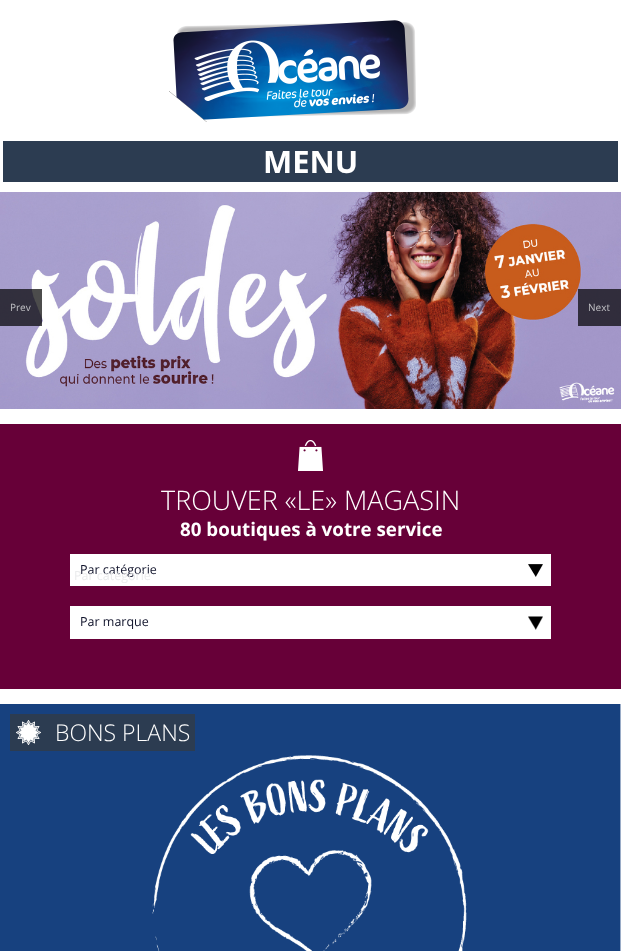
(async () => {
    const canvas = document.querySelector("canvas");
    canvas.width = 621;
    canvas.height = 951;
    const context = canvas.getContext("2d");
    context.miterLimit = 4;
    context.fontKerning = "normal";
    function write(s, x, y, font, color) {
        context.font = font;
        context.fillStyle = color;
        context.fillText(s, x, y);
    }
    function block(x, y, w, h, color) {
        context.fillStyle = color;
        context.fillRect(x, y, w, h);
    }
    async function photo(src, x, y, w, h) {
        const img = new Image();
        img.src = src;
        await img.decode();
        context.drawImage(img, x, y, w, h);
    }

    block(0, 0, 621, 951, "rgb(255, 255, 255)");
    await photo("media/1.png", 169, 20, 247, 102);
    block(3, 141, 615, 41, "rgb(44, 60, 81)");
    write("MENU", 263, 173, "bold 31px Open Sans", "rgb(255, 255, 255)");
    await photo("media/2.png", 0, 192, 621, 217);
    block(0, 289, 42, 37, "rgba(0, 0, 0, 0.7)");
    write("Prev", 10, 311, "10px Open Sans", "rgb(193, 193, 197)");
    block(578, 289, 43, 37, "rgba(0, 0, 0, 0.7)");
    write("Next", 588, 311, "10px Open Sans", "rgb(193, 193, 197)");
    block(0, 424, 621, 265, "rgb(103, 0, 56)");
    await photo("media/3.png", 298, 440, 25, 31);
    write("TROUVER «LE» MAGASIN", 161, 510, "300 27px Open Sans", "rgb(255, 255, 255)");
    write("80 boutiques à votre service", 180, 536, "bold 18.75px Open Sans", "rgb(255, 255, 255)");
    block(70, 554, 481, 32, "rgb(255, 255, 255)");
    await photo("media/4.png", 528, 564, 15, 13);
    write("Par catégorie", 80, 574, "12.5px Open Sans", "rgb(16, 19, 43)");
    write("Par catégorie", 74, 580, "12.5px Open Sans", "rgb(235, 236, 237)");
    block(70, 606, 481, 33, "rgb(255, 255, 255)");
    await photo("media/5.png", 528, 616, 15, 14);
    write("Par marque", 80, 626, "12.5px Open Sans", "rgb(16, 19, 43)");
    await photo("media/6.png", 0, 704, 621, 247);
    block(10, 714, 185, 37, "rgb(44, 60, 81)");
    await photo("media/7.png", 16, 720, 25, 25);
    write("BONS PLANS", 55, 741, "300 23px Open Sans", "rgb(255, 255, 255)");
})();
